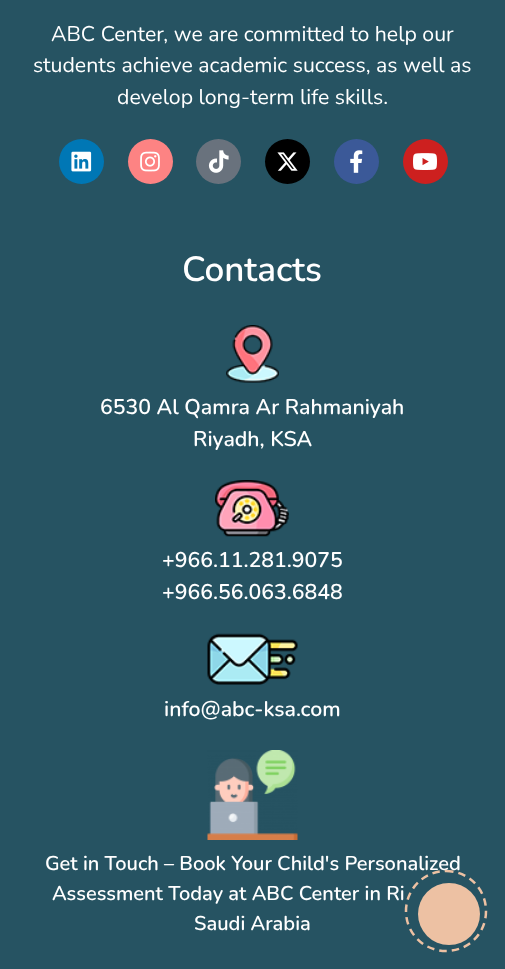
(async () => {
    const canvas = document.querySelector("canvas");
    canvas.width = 505;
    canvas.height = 969;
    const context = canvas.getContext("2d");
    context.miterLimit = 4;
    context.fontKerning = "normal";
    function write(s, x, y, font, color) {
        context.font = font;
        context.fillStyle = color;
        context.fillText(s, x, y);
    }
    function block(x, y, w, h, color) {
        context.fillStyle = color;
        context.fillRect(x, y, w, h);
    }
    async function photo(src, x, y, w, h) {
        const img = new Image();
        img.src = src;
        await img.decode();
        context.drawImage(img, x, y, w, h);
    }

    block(0, 0, 505, 969, "rgb(38, 83, 98)");
    write("ABC Center, we are committed to help our", 51, 41, "21.25px Nunito", "rgb(255, 255, 255)");
    write("students achieve academic success, as well as", 33, 72, "21.25px Nunito", "rgb(255, 255, 255)");
    write("develop long-term life skills.", 117, 104, "21.25px Nunito", "rgb(255, 255, 255)");
    context.fillStyle = "rgb(0, 119, 181)";
    context.beginPath();
    context.arc(81.5, 161.5, 22.5, 0, Math.PI * 2);
    context.fill();
    await photo("media/1.png", 71, 151, 21, 21);
    context.fillStyle = "rgb(253, 131, 131)";
    context.beginPath();
    context.arc(150.5, 161.5, 22.5, 0, Math.PI * 2);
    context.fill();
    await photo("media/2.png", 140, 151, 20, 21);
    context.fillStyle = "rgb(105, 114, 125)";
    context.beginPath();
    context.arc(218.5, 161.5, 22.5, 0, Math.PI * 2);
    context.fill();
    await photo("media/3.png", 208, 150, 21, 23);
    context.fillStyle = "rgb(0, 0, 0)";
    context.beginPath();
    context.arc(287.5, 161.5, 22.5, 0, Math.PI * 2);
    context.fill();
    await photo("media/4.png", 277, 152, 21, 19);
    context.fillStyle = "rgb(59, 89, 152)";
    context.beginPath();
    context.arc(356.5, 161.5, 22.5, 0, Math.PI * 2);
    context.fill();
    await photo("media/5.png", 350, 150, 13, 23);
    context.fillStyle = "rgb(205, 32, 31)";
    context.beginPath();
    context.arc(425.5, 161.5, 22.5, 0, Math.PI * 2);
    context.fill();
    await photo("media/6.png", 413, 153, 24, 17);
    write("Contacts", 182, 281, "600 35px Nunito", "rgb(255, 255, 255)");
    await photo("media/7.png", 226, 325, 53, 58);
    write("6530 Al Qamra Ar Rahmaniyah", 100, 414, "600 21.25px Nunito", "rgb(255, 255, 255)");
    write("Riyadh, KSA", 193, 446, "600 21.25px Nunito", "rgb(255, 255, 255)");
    await photo("media/8.png", 215, 480, 74, 57);
    write("+966.11.281.9075", 162, 567, "600 21.25px Nunito", "rgb(255, 255, 255)");
    write("+966.56.063.6848", 162, 599, "600 21.25px Nunito", "rgb(255, 255, 255)");
    await photo("media/9.png", 207, 633, 91, 52);
    write("info@abc-ksa.com", 164, 716, "600 21.25px Nunito", "rgb(255, 255, 255)");
    await photo("media/10.png", 207, 750, 91, 90);
    write("Get in Touch – Book Your Child's Personalized", 45, 870, "600 20px Nunito", "rgb(255, 255, 255)");
    write("Assessment Today at ABC Center in Ri", 52, 900, "600 20px Nunito", "rgb(255, 255, 255)");
    write("Saudi Arabia", 194, 930, "600 20px Nunito", "rgb(255, 255, 255)");
    context.fillStyle = "rgb(237, 193, 163)";
    context.beginPath();
    context.arc(449, 914, 31, 0, Math.PI * 2);
    context.fill();
    context.beginPath();
    context.moveTo(446, 871);
    context.bezierCurveTo(468.5, 871, 486, 889, 486, 911);
    context.bezierCurveTo(486, 933.5, 468.5, 951, 446, 951);
    context.bezierCurveTo(424, 951, 406, 933.5, 406, 911);
    context.bezierCurveTo(406, 889, 424, 871, 446, 871);
    context.closePath();
    context.strokeStyle = "rgb(237, 193, 163)";
    context.lineWidth = 2.5;
    context.setLineDash([7.5, 5]);
    context.stroke();
})();
